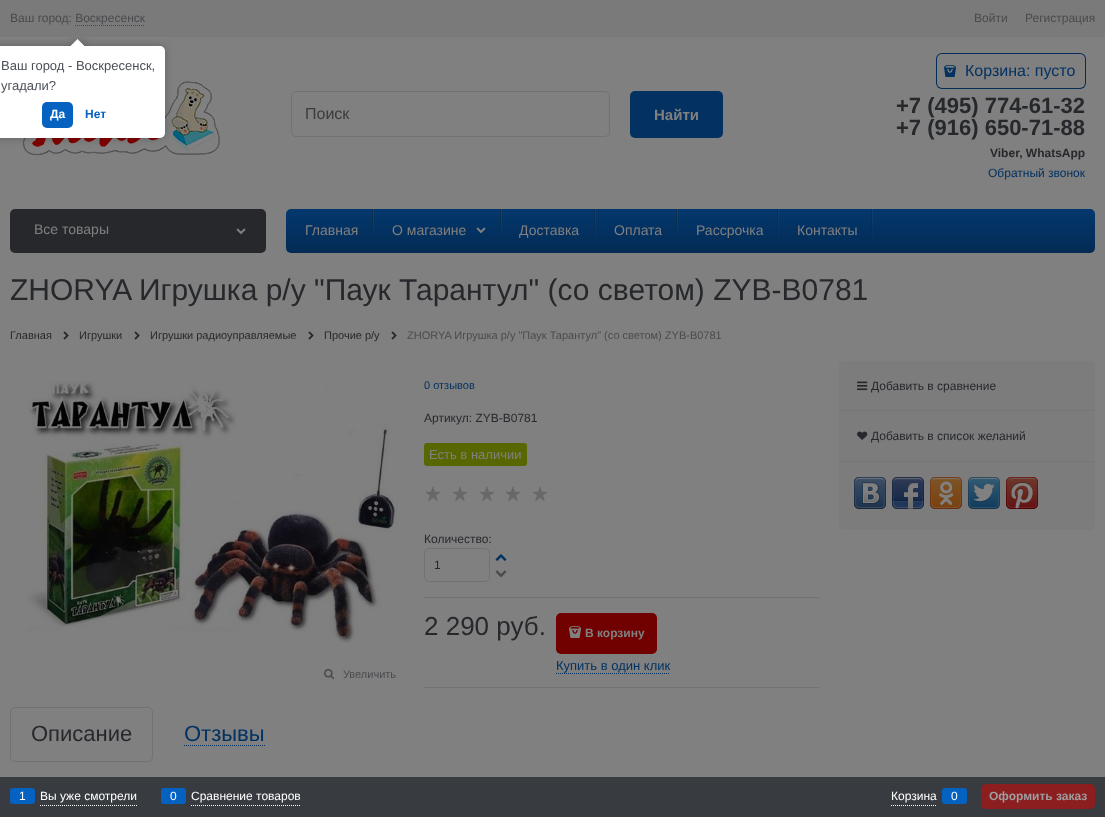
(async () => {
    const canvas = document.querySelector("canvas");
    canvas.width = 1105;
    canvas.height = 817;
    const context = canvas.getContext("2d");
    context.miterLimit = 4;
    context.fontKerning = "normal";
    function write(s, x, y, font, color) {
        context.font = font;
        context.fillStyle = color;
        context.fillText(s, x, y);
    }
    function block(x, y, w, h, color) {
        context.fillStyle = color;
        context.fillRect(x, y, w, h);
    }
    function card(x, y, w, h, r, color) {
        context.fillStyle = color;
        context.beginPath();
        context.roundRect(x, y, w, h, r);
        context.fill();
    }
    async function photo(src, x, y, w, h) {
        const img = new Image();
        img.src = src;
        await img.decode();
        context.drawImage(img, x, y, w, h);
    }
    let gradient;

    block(0, 0, 1105, 817, "rgb(128, 128, 128)");
    block(0, 0, 1105, 37, "rgb(122, 122, 122)");
    write("Ваш город: Воскресенск", 10, 22, "12px Liberation Sans", "rgb(74, 75, 78)");
    context.beginPath();
    context.moveTo(75, 25.5);
    context.lineTo(145, 25.5);
    context.strokeStyle = "rgb(74, 75, 78)";
    context.setLineDash([1, 1]);
    context.stroke();
    write("Войти", 974, 22, "12px Liberation Sans", "rgb(74, 75, 78)");
    write("Регистрация", 1025, 22, "12px Liberation Sans", "rgb(74, 75, 78)");
    await photo("media/1.png", 20, 80, 200, 76);
    context.beginPath();
    context.roundRect(291.5, 91.5, 318, 45, 4.5);
    context.strokeStyle = "rgb(113, 114, 114)";
    context.setLineDash([]);
    context.stroke();
    write("Поиск", 305, 119, "16px Liberation Sans", "rgb(59, 59, 59)");
    card(630, 91, 93, 47, 5, "rgb(3, 49, 97)");
    write("Найти", 654, 120, "bold 15px Liberation Sans", "rgb(128, 128, 128)");
    context.fillStyle = "rgb(3, 44, 88)";
    context.filter = "blur(0.5px)";
    context.beginPath();
    context.roundRect(936, 53, 150, 36, 6);
    context.fill();
    context.filter = "none";
    card(937, 54, 148, 34, 5, "rgb(128, 128, 128)");
    await photo("media/2.png", 944, 65, 12, 12);
    write("Корзина: пусто", 965, 76, "16px Liberation Sans", "rgb(3, 49, 97)");
    write("+7 (495) 774-61-32", 896, 113, "bold 22px Liberation Sans", "rgb(38, 40, 44)");
    write("+7 (916) 650-71-88", 896, 135, "bold 22px Liberation Sans", "rgb(38, 40, 44)");
    write("Viber, WhatsApp", 990, 157, "bold 12px Liberation Sans", "rgb(38, 40, 44)");
    write("Обратный звонок", 988, 177, "12px Liberation Sans", "rgb(3, 49, 97)");
    card(10, 209, 256, 44, 5, "rgb(38, 40, 44)");
    write("Все товары", 34, 234, "14px Liberation Sans", "rgb(128, 128, 128)");
    await photo("media/3.png", 236, 228, 10, 7);
    gradient = context.createLinearGradient(691, 209, 691, 253);
    gradient.addColorStop(0, "rgb(4, 56, 109)");
    gradient.addColorStop(0.5, "rgb(3, 49, 97)");
    gradient.addColorStop(1, "rgb(3, 43, 84)");
    context.fillStyle = gradient;
    context.beginPath();
    context.roundRect(286, 209, 809, 44, 5);
    context.fill();
    write("Главная", 305, 235, "14px Liberation Sans", "rgb(128, 128, 128)");
    gradient = context.createLinearGradient(374, 209, 374, 253);
    gradient.addColorStop(0, "rgba(128, 128, 128, 0.14)");
    gradient.addColorStop(0.72, "rgba(128, 128, 128, 0.02)");
    gradient.addColorStop(1, "rgba(128, 128, 128, 0)");
    context.fillStyle = gradient;
    context.fillRect(373, 209, 1, 31);
    gradient = context.createLinearGradient(373, 209, 373, 253);
    gradient.addColorStop(0, "rgba(29, 29, 29, 0.39)");
    gradient.addColorStop(0.17, "rgba(29, 29, 29, 0.33)");
    gradient.addColorStop(0.61, "rgba(29, 29, 29, 0.12)");
    gradient.addColorStop(0.96, "rgba(29, 29, 29, 0.01)");
    gradient.addColorStop(0.98, "rgba(128, 128, 128, 0.01)");
    gradient.addColorStop(1, "rgba(128, 128, 128, 0)");
    context.fillStyle = gradient;
    context.fillRect(372, 209, 1, 44);
    write("О магазине", 392, 235, "14px Liberation Sans", "rgb(128, 128, 128)");
    await photo("media/4.png", 476, 227, 10, 7);
    gradient = context.createLinearGradient(502, 209, 502, 253);
    gradient.addColorStop(0, "rgba(128, 128, 128, 0.14)");
    gradient.addColorStop(0.72, "rgba(128, 128, 128, 0.02)");
    gradient.addColorStop(1, "rgba(128, 128, 128, 0)");
    context.fillStyle = gradient;
    context.fillRect(501, 209, 1, 31);
    gradient = context.createLinearGradient(501, 209, 501, 253);
    gradient.addColorStop(0, "rgba(29, 29, 29, 0.39)");
    gradient.addColorStop(0.17, "rgba(29, 29, 29, 0.33)");
    gradient.addColorStop(0.61, "rgba(29, 29, 29, 0.12)");
    gradient.addColorStop(0.96, "rgba(29, 29, 29, 0.01)");
    gradient.addColorStop(0.98, "rgba(128, 128, 128, 0.01)");
    gradient.addColorStop(1, "rgba(128, 128, 128, 0)");
    context.fillStyle = gradient;
    context.fillRect(500, 209, 1, 44);
    write("Доставка", 519, 235, "14px Liberation Sans", "rgb(128, 128, 128)");
    gradient = context.createLinearGradient(596, 209, 596, 253);
    gradient.addColorStop(0, "rgba(128, 128, 128, 0.14)");
    gradient.addColorStop(0.72, "rgba(128, 128, 128, 0.02)");
    gradient.addColorStop(1, "rgba(128, 128, 128, 0)");
    context.fillStyle = gradient;
    context.fillRect(595, 209, 1, 31);
    gradient = context.createLinearGradient(595, 209, 595, 253);
    gradient.addColorStop(0, "rgba(29, 29, 29, 0.39)");
    gradient.addColorStop(0.17, "rgba(29, 29, 29, 0.33)");
    gradient.addColorStop(0.61, "rgba(29, 29, 29, 0.12)");
    gradient.addColorStop(0.96, "rgba(29, 29, 29, 0.01)");
    gradient.addColorStop(0.98, "rgba(128, 128, 128, 0.01)");
    gradient.addColorStop(1, "rgba(128, 128, 128, 0)");
    context.fillStyle = gradient;
    context.fillRect(594, 209, 1, 44);
    write("Оплата", 614, 235, "14px Liberation Sans", "rgb(128, 128, 128)");
    gradient = context.createLinearGradient(678, 209, 678, 253);
    gradient.addColorStop(0, "rgba(128, 128, 128, 0.14)");
    gradient.addColorStop(0.72, "rgba(128, 128, 128, 0.02)");
    gradient.addColorStop(1, "rgba(128, 128, 128, 0)");
    context.fillStyle = gradient;
    context.fillRect(677, 209, 1, 31);
    gradient = context.createLinearGradient(677, 209, 677, 253);
    gradient.addColorStop(0, "rgba(29, 29, 29, 0.39)");
    gradient.addColorStop(0.17, "rgba(29, 29, 29, 0.33)");
    gradient.addColorStop(0.61, "rgba(29, 29, 29, 0.12)");
    gradient.addColorStop(0.96, "rgba(29, 29, 29, 0.01)");
    gradient.addColorStop(0.98, "rgba(128, 128, 128, 0.01)");
    gradient.addColorStop(1, "rgba(128, 128, 128, 0)");
    context.fillStyle = gradient;
    context.fillRect(676, 209, 1, 44);
    write("Рассрочка", 696, 235, "14px Liberation Sans", "rgb(128, 128, 128)");
    gradient = context.createLinearGradient(779, 209, 779, 253);
    gradient.addColorStop(0, "rgba(128, 128, 128, 0.14)");
    gradient.addColorStop(0.72, "rgba(128, 128, 128, 0.02)");
    gradient.addColorStop(1, "rgba(128, 128, 128, 0)");
    context.fillStyle = gradient;
    context.fillRect(778, 209, 1, 31);
    gradient = context.createLinearGradient(778, 209, 778, 253);
    gradient.addColorStop(0, "rgba(29, 29, 29, 0.39)");
    gradient.addColorStop(0.17, "rgba(29, 29, 29, 0.33)");
    gradient.addColorStop(0.61, "rgba(29, 29, 29, 0.12)");
    gradient.addColorStop(0.96, "rgba(29, 29, 29, 0.01)");
    gradient.addColorStop(0.98, "rgba(128, 128, 128, 0.01)");
    gradient.addColorStop(1, "rgba(128, 128, 128, 0)");
    context.fillStyle = gradient;
    context.fillRect(777, 209, 1, 44);
    write("Контакты", 797, 235, "14px Liberation Sans", "rgb(128, 128, 128)");
    gradient = context.createLinearGradient(873, 209, 873, 253);
    gradient.addColorStop(0, "rgba(128, 128, 128, 0.14)");
    gradient.addColorStop(0.72, "rgba(128, 128, 128, 0.02)");
    gradient.addColorStop(1, "rgba(128, 128, 128, 0)");
    context.fillStyle = gradient;
    context.fillRect(872, 209, 1, 31);
    gradient = context.createLinearGradient(872, 209, 872, 253);
    gradient.addColorStop(0, "rgba(29, 29, 29, 0.39)");
    gradient.addColorStop(0.17, "rgba(29, 29, 29, 0.33)");
    gradient.addColorStop(0.61, "rgba(29, 29, 29, 0.12)");
    gradient.addColorStop(0.96, "rgba(29, 29, 29, 0.01)");
    gradient.addColorStop(0.98, "rgba(128, 128, 128, 0.01)");
    gradient.addColorStop(1, "rgba(128, 128, 128, 0)");
    context.fillStyle = gradient;
    context.fillRect(871, 209, 1, 44);
    write("ZHORYA Игрушка р/у \"Паук Тарантул\" (со светом) ZYB-B0781", 10, 300, "30px Liberation Sans", "rgb(38, 40, 44)");
    write("Главная", 10, 339, "11px Liberation Sans", "rgb(38, 40, 44)");
    await photo("media/5.png", 63, 331, 6, 9);
    write("Игрушки", 79, 339, "11px Liberation Sans", "rgb(38, 40, 44)");
    await photo("media/5.png", 134, 331, 6, 9);
    write("Игрушки радиоуправляемые", 150, 339, "11px Liberation Sans", "rgb(38, 40, 44)");
    await photo("media/5.png", 308, 331, 6, 9);
    write("Прочие р/у", 324, 339, "11px Liberation Sans", "rgb(38, 40, 44)");
    await photo("media/5.png", 391, 331, 6, 9);
    write("ZHORYA Игрушка р/у \"Паук Тарантул\" (со светом) ZYB-B0781", 407, 339, "11px Liberation Sans", "rgb(74, 75, 78)");
    write("0 отзывов", 424, 389, "11px Liberation Sans", "rgb(3, 49, 97)");
    write("Артикул: ZYB-B0781", 424, 422, "12px Liberation Sans", "rgb(38, 40, 44)");
    card(424, 443, 103, 23, 3, "rgb(89, 103, 2)");
    write("Есть в наличии", 429, 459, "13px Liberation Sans", "rgb(128, 128, 128)");
    await photo("media/6.png", 425, 486, 16, 16);
    await photo("media/6.png", 452, 486, 16, 16);
    await photo("media/6.png", 479, 486, 16, 16);
    await photo("media/6.png", 505, 486, 16, 16);
    await photo("media/6.png", 532, 486, 16, 16);
    write("Количество:", 424, 543, "12px Liberation Sans", "rgb(38, 40, 44)");
    context.beginPath();
    context.roundRect(424.5, 548.5, 65, 33, 4.5);
    context.stroke();
    write("1", 434, 569, "12px Liberation Sans", "rgb(38, 40, 44)");
    await photo("media/7.png", 495, 554, 12, 7);
    await photo("media/8.png", 495, 570, 12, 8);
    block(424, 597, 395, 1, "rgb(113, 114, 114)");
    block(424, 687, 395, 1, "rgb(113, 114, 114)");
    write("2 290 руб.", 424, 635, "26px Liberation Sans", "rgb(38, 40, 44)");
    card(556, 613, 101, 41, 5, "rgb(113, 0, 0)");
    await photo("media/9.png", 569, 626, 12, 12);
    write("В корзину", 585, 637, "bold 12px Liberation Sans", "rgb(128, 128, 128)");
    write("Купить в один клик", 556, 670, "13px Liberation Sans", "rgb(3, 49, 97)");
    context.beginPath();
    context.moveTo(556, 673.5);
    context.lineTo(670, 673.5);
    context.strokeStyle = "rgb(3, 49, 97)";
    context.setLineDash([1, 1]);
    context.stroke();
    await photo("media/10.png", 27, 381, 371, 262);
    await photo("media/11.png", 324, 668, 11, 12);
    write("Увеличить", 343, 678, "11px Liberation Sans", "rgb(74, 75, 78)");
    context.beginPath();
    context.roundRect(10.5, 707.5, 142, 54, 4.5);
    context.strokeStyle = "rgb(113, 114, 114)";
    context.setLineDash([]);
    context.stroke();
    write("Описание", 31, 741, "22px Liberation Sans", "rgb(38, 40, 44)");
    context.beginPath();
    context.moveTo(184, 745.5);
    context.lineTo(265, 745.5);
    context.strokeStyle = "rgb(3, 49, 97)";
    context.setLineDash([1, 1]);
    context.stroke();
    write("Отзывы", 184, 741, "22px Liberation Sans", "rgb(3, 49, 97)");
    card(839, 361, 256, 169, 5, "rgb(124, 124, 124)");
    block(839, 410, 256, 1, "rgb(117, 117, 117)");
    await photo("media/12.png", 857, 381, 11, 10);
    write("Добавить в сравнение", 871, 390, "12px Liberation Sans", "rgb(38, 40, 44)");
    block(839, 461, 256, 1, "rgb(117, 117, 117)");
    await photo("media/13.png", 857, 431, 11, 9);
    write("Добавить в список желаний", 871, 440, "12px Liberation Sans", "rgb(38, 40, 44)");
    await photo("media/14.png", 854, 477, 32, 32);
    await photo("media/15.png", 892, 477, 32, 32);
    await photo("media/16.png", 930, 477, 32, 32);
    await photo("media/17.png", 968, 477, 32, 32);
    await photo("media/18.png", 1006, 477, 32, 32);
    block(0, 777, 1105, 40, "rgb(56, 60, 64)");
    context.beginPath();
    context.moveTo(40, 805.5);
    context.lineTo(137, 805.5);
    context.strokeStyle = "rgb(255, 255, 255)";
    context.stroke();
    card(10, 788, 25, 16, 3, "rgb(6, 98, 193)");
    write("1", 19, 800, "12px Liberation Sans", "rgb(255, 255, 255)");
    write("Вы уже смотрели", 40, 800, "12px Liberation Sans", "rgb(255, 255, 255)");
    context.beginPath();
    context.moveTo(191, 805.5);
    context.lineTo(300, 805.5);
    context.stroke();
    card(161, 788, 25, 16, 3, "rgb(6, 98, 193)");
    write("0", 170, 800, "12px Liberation Sans", "rgb(255, 255, 255)");
    write("Сравнение товаров", 191, 800, "12px Liberation Sans", "rgb(255, 255, 255)");
    context.beginPath();
    context.moveTo(891, 805.5);
    context.lineTo(937, 805.5);
    context.stroke();
    write("Корзина", 891, 800, "12px Liberation Sans", "rgb(255, 255, 255)");
    card(942, 788, 25, 16, 3, "rgb(6, 98, 193)");
    write("0", 951, 800, "12px Liberation Sans", "rgb(255, 255, 255)");
    card(981, 784, 114, 25, 5, "rgb(141, 30, 32)");
    write("Оформить заказ", 989, 800, "bold 12px Liberation Sans", "rgb(156, 158, 160)");
    context.fillStyle = "rgba(0, 0, 0, 0.25)";
    context.filter = "blur(4.5px)";
    context.beginPath();
    context.roundRect(-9, 46, 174, 92, 5);
    context.fill();
    context.filter = "none";
    card(-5, 46, 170, 92, 5, "rgb(255, 255, 255)");
    context.save();
    context.beginPath();
    context.rect(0, 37, 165, 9);
    context.clip();
    context.fillStyle = "rgba(0, 0, 0, 0.25)";
    context.filter = "blur(4.5px)";
    context.beginPath();
    context.rect(73, 41, 10, 10);
    context.fill();
    context.filter = "none";
    context.restore();
    context.save();
    context.beginPath();
    context.rect(0, 37, 165, 9);
    context.clip();
    context.beginPath();
    context.moveTo(77.5, 39);
    context.lineTo(84.5, 46);
    context.lineTo(77.5, 53);
    context.lineTo(70.5, 46);
    context.closePath();
    context.fill();
    context.restore();
    write("Ваш город - Воскресенск,", 1, 70, "13px Liberation Sans", "rgb(75, 79, 88)");
    write("угадали?", 1, 90, "13px Liberation Sans", "rgb(75, 79, 88)");
    card(42, 102, 31, 26, 5, "rgb(6, 98, 193)");
    write("Да", 50, 118, "bold 12px Liberation Sans", "rgb(255, 255, 255)");
    write("Нет", 85, 118, "bold 12px Liberation Sans", "rgb(6, 98, 193)");
})();
